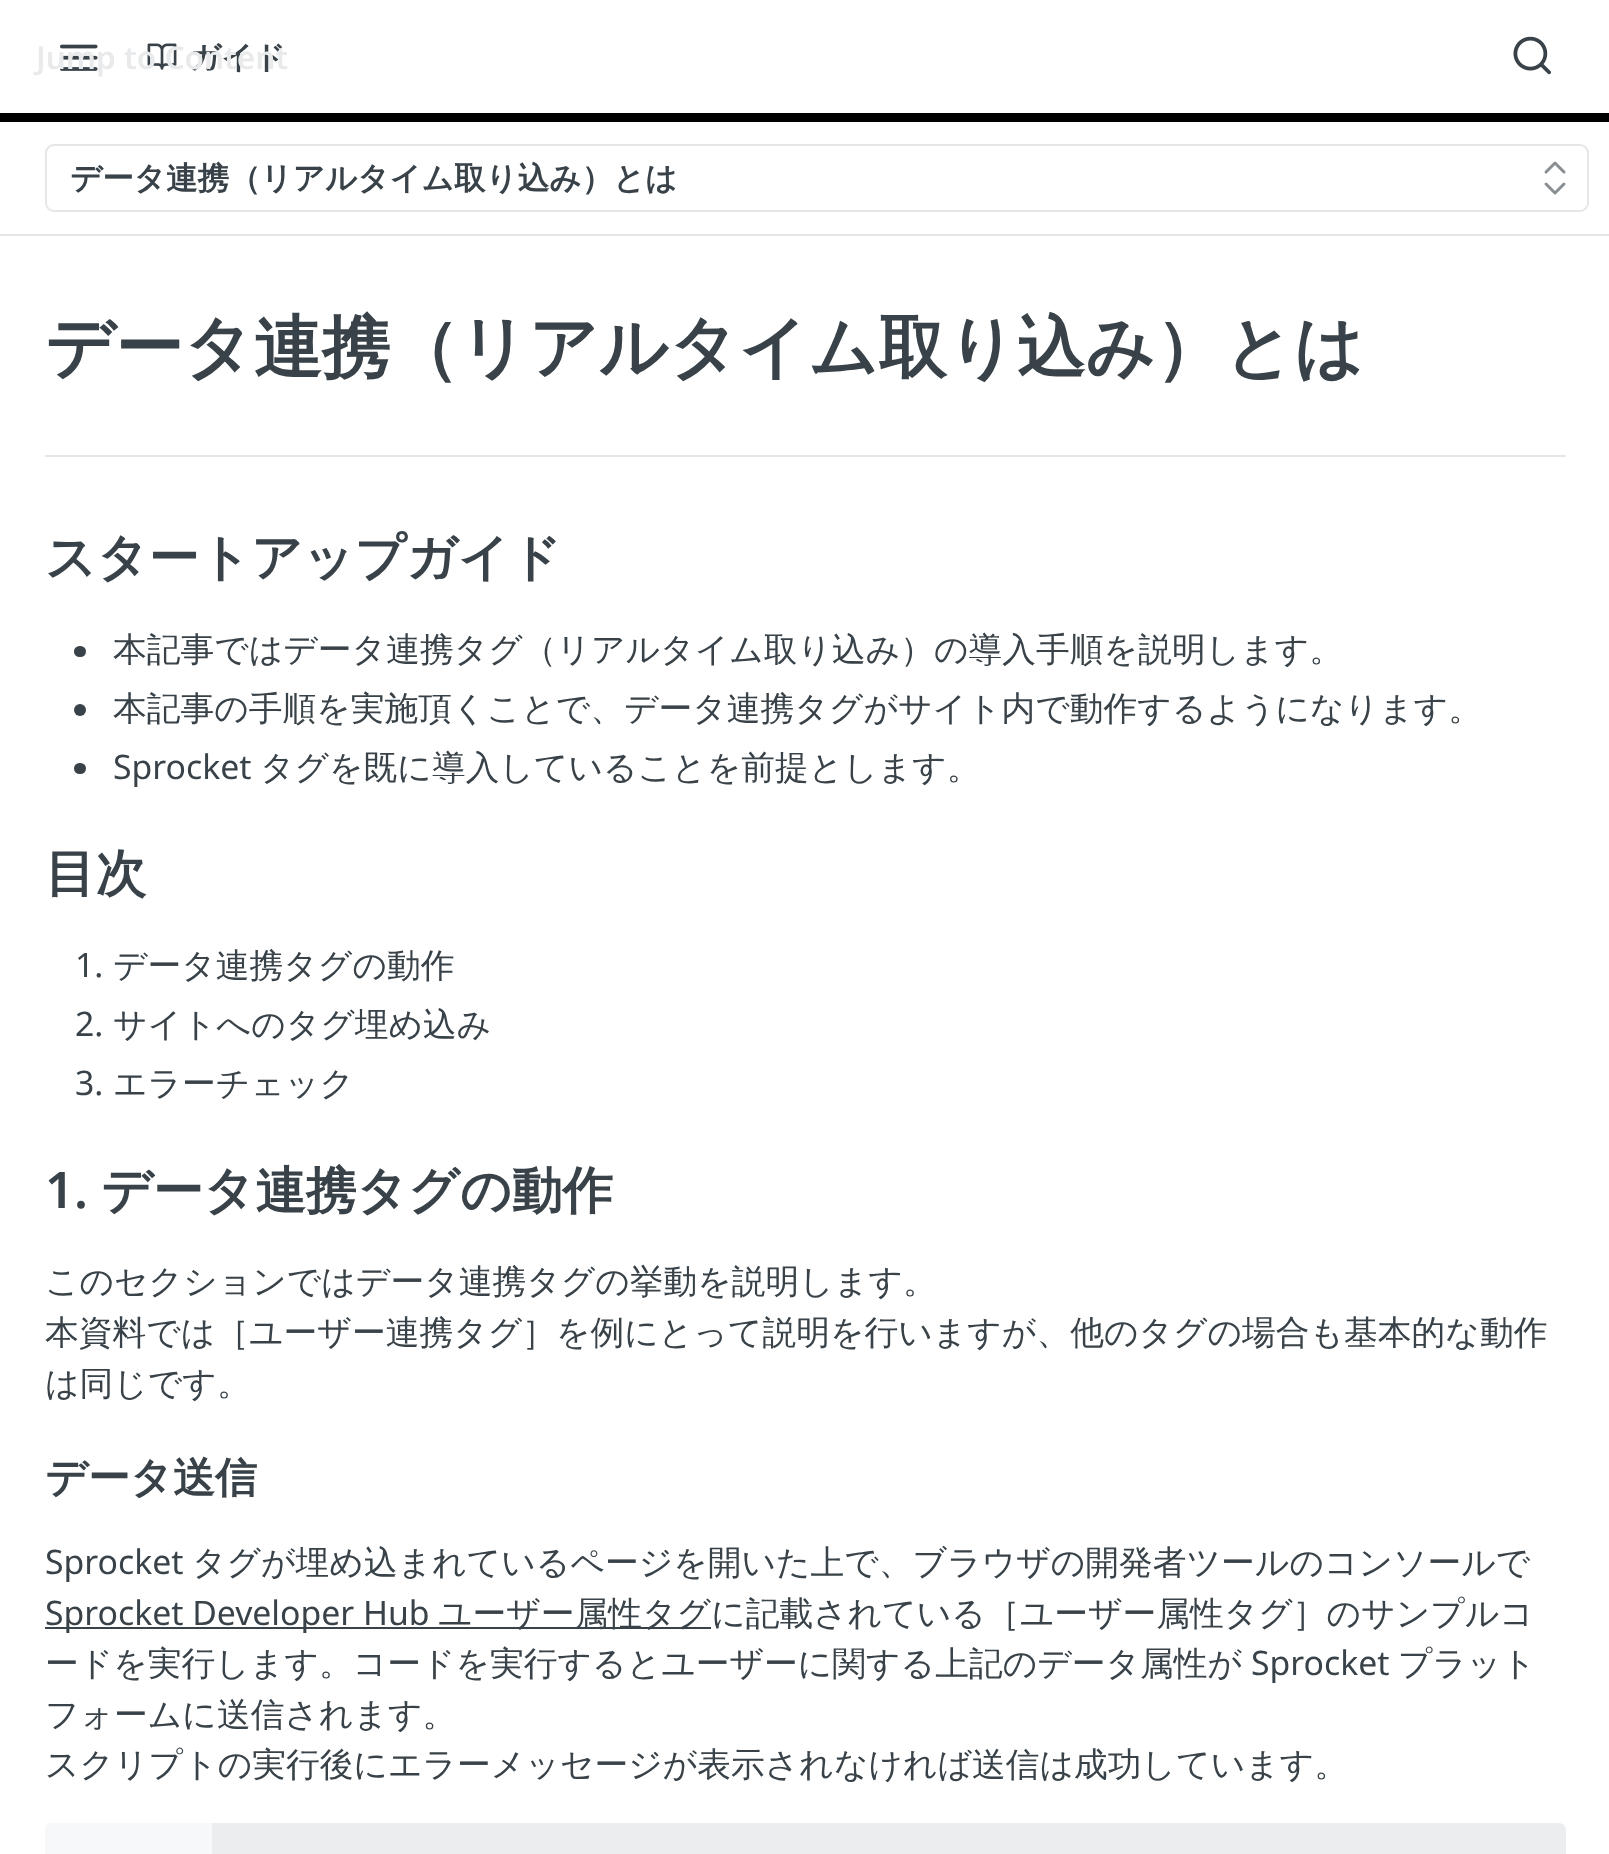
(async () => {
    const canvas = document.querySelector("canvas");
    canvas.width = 1609;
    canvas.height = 1854;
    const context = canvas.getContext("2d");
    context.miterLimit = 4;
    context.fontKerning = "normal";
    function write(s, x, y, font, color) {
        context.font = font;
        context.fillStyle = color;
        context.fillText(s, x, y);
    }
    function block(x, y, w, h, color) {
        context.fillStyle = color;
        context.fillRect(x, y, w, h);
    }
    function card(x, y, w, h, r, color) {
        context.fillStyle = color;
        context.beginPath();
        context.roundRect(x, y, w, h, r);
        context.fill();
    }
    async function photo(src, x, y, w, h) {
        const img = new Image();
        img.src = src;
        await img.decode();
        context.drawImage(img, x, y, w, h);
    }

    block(0, 0, 1609, 1854, "rgb(255, 255, 255)");
    block(0, 234, 1609, 2, "rgb(230, 230, 230)");
    block(0, 113, 1609, 9, "rgb(0, 0, 0)");
    await photo("media/1.png", 60, 44, 38, 27);
    await photo("media/2.png", 147, 43, 30, 27);
    write("ガイド", 189, 68, "bold 31.5px WenQuanYi Zen Hei", "rgb(56, 66, 72)");
    await photo("media/3.png", 1513, 36, 38, 39);
    write("Jump to Content", 36, 69, "600 31.5px Noto Sans", "rgb(233, 234, 235)");
    context.beginPath();
    context.roundRect(46, 145, 1542, 66, 8);
    context.strokeStyle = "rgb(230, 230, 230)";
    context.lineWidth = 2;
    context.stroke();
    write("データ連携（リアルタイム取り込み）とは", 70, 189, "bold 31.5px WenQuanYi Zen Hei", "rgb(56, 66, 72)");
    context.beginPath();
    context.moveTo(1546, 184);
    context.lineTo(1555, 193);
    context.lineTo(1564, 184);
    context.moveTo(1564, 172);
    context.lineTo(1555, 163);
    context.lineTo(1546, 172);
    context.strokeStyle = "rgb(136, 142, 145)";
    context.lineWidth = 3;
    context.lineCap = "round";
    context.lineJoin = "round";
    context.stroke();
    block(45, 455, 1521, 2, "rgb(230, 230, 230)");
    write("データ連携（リアルタイム取り込み）とは", 45, 371, "bold 68.4px WenQuanYi Zen Hei", "rgb(56, 66, 72)");
    write("スタートアップガイド", 45, 575, "bold 50.6px WenQuanYi Zen Hei", "rgb(56, 66, 72)");
    card(74, 646, 12, 11, 5.5, "rgb(56, 66, 72)");
    write("本記事ではデータ連携タグ（リアルタイム取り込み）の導入手順を説明します。", 113, 661, "500 33.75px WenQuanYi Zen Hei", "rgb(56, 66, 72)");
    context.beginPath();
    context.arc(80, 710, 6, 0, Math.PI * 2);
    context.fill();
    write("本記事の手順を実施頂くことで、データ連携タグがサイト内で動作するようになります。", 113, 720, "500 33.75px WenQuanYi Zen Hei", "rgb(56, 66, 72)");
    card(74, 763, 12, 11, 5.5, "rgb(56, 66, 72)");
    write("Sprocket", 113, 779, "33.75px Noto Sans", "rgb(56, 66, 72)");
    write("タグを既に導入していることを前提とします。", 260, 779, "500 33.75px WenQuanYi Zen Hei", "rgb(56, 66, 72)");
    write("目次", 45, 891, "bold 50.6px WenQuanYi Zen Hei", "rgb(56, 66, 72)");
    write("1.", 75, 977, "33.75px Noto Sans", "rgb(56, 66, 72)");
    write("データ連携タグの動作", 113, 977, "500 33.75px WenQuanYi Zen Hei", "rgb(56, 66, 72)");
    write("2.", 75, 1036, "33.75px Noto Sans", "rgb(56, 66, 72)");
    write("サイトへのタグ埋め込み", 113, 1036, "500 33.75px WenQuanYi Zen Hei", "rgb(56, 66, 72)");
    write("3.", 75, 1095, "33.75px Noto Sans", "rgb(56, 66, 72)");
    write("エラーチェック", 113, 1095, "500 33.75px WenQuanYi Zen Hei", "rgb(56, 66, 72)");
    write("1.", 45, 1208, "600 50.6px Noto Sans", "rgb(56, 66, 72)");
    write("データ連携タグの動作", 101, 1208, "bold 50.6px WenQuanYi Zen Hei", "rgb(56, 66, 72)");
    write("このセクションではデータ連携タグの挙動を説明します。", 45, 1293, "500 33.75px WenQuanYi Zen Hei", "rgb(56, 66, 72)");
    write("本資料では［ユーザー連携タグ］を例にとって説明を行いますが、他のタグの場合も基本的な動作", 45, 1344, "500 33.75px WenQuanYi Zen Hei", "rgb(56, 66, 72)");
    write("は同じです。", 45, 1395, "500 33.75px WenQuanYi Zen Hei", "rgb(56, 66, 72)");
    write("データ送信", 45, 1492, "bold 42px WenQuanYi Zen Hei", "rgb(56, 66, 72)");
    write("Sprocket", 45, 1574, "33.75px Noto Sans", "rgb(56, 66, 72)");
    write("タグが埋め込まれているページを開いた上で、ブラウザの開発者ツールのコンソールで", 192, 1574, "500 33.75px WenQuanYi Zen Hei", "rgb(56, 66, 72)");
    block(45, 1627, 666, 2, "rgb(56, 66, 72)");
    write("Sprocket Developer Hub", 45, 1625, "33.75px Noto Sans", "rgb(56, 66, 72)");
    write("ユーザー属性タグに記載されている［ユーザー属性タグ］のサンプルコ", 438, 1625, "500 33.75px WenQuanYi Zen Hei", "rgb(56, 66, 72)");
    write("ードを実行します。コードを実行するとユーザーに関する上記のデータ属性が", 45, 1675, "500 33.75px WenQuanYi Zen Hei", "rgb(56, 66, 72)");
    write("Sprocket", 1251, 1675, "33.75px Noto Sans", "rgb(56, 66, 72)");
    write("プラット", 1398, 1675, "500 33.75px WenQuanYi Zen Hei", "rgb(56, 66, 72)");
    write("フォームに送信されます。", 45, 1726, "500 33.75px WenQuanYi Zen Hei", "rgb(56, 66, 72)");
    write("スクリプトの実行後にエラーメッセージが表示されなければ送信は成功しています。", 45, 1776, "500 33.75px WenQuanYi Zen Hei", "rgb(56, 66, 72)");
    context.fillStyle = "rgb(235, 237, 239)";
    context.beginPath();
    context.roundRect(45, 1823, 1521, 31, [7, 7, 0, 0]);
    context.fill();
    context.fillStyle = "rgb(246, 248, 250)";
    context.beginPath();
    context.roundRect(45, 1823, 167, 31, [7, 0, 0, 0]);
    context.fill();
})();
